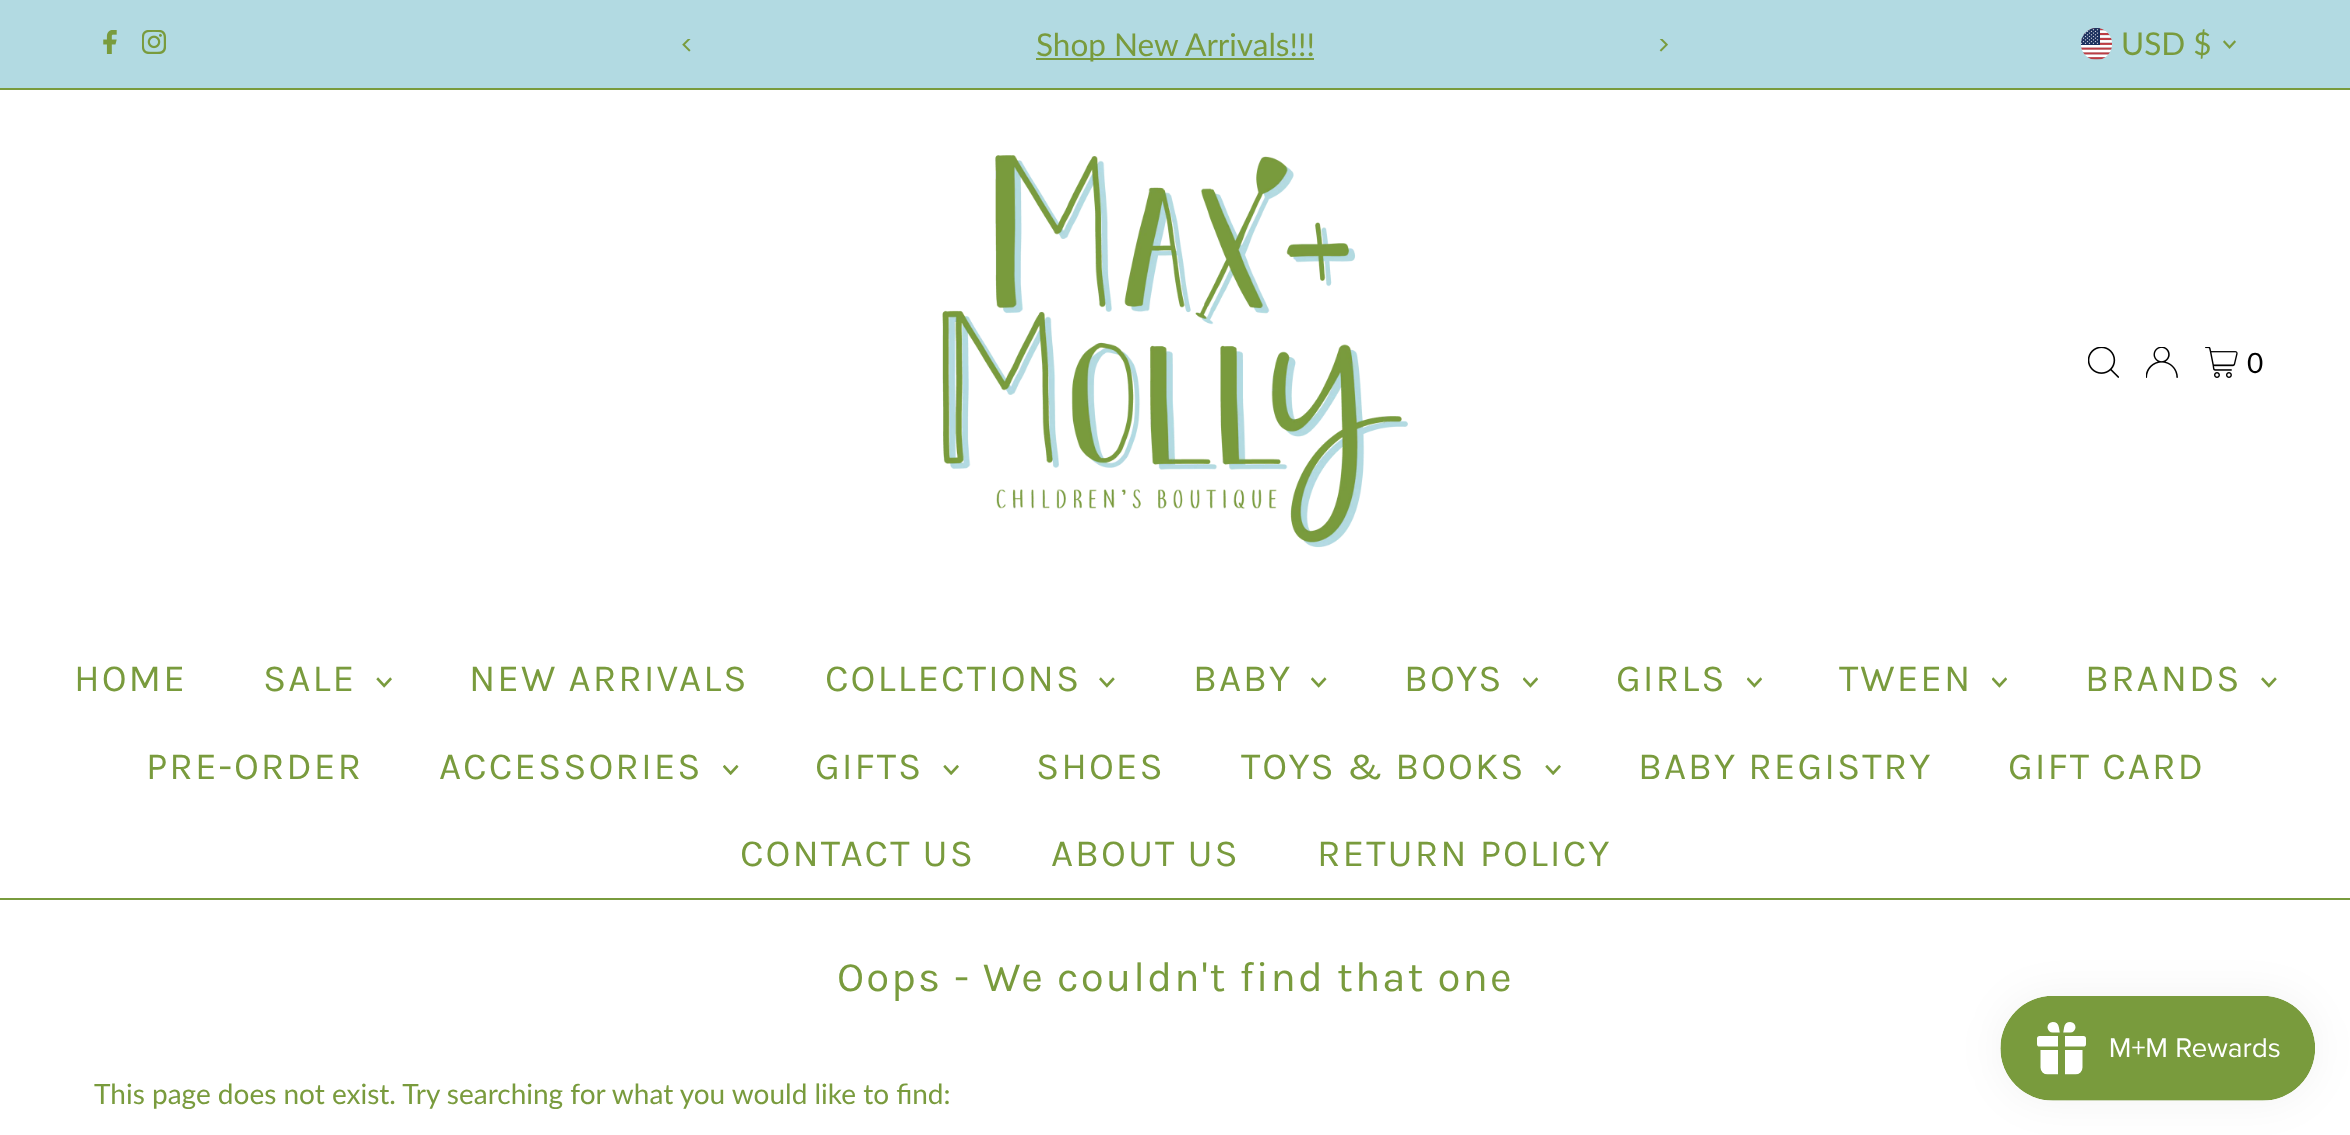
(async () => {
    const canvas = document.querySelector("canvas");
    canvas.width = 2350;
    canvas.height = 1135;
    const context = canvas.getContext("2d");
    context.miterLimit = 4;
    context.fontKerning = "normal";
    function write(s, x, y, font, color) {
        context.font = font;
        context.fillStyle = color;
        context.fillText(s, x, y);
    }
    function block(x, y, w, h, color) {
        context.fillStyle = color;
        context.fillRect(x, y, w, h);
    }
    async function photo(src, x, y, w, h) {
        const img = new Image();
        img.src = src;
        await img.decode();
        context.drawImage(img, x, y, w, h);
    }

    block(0, 0, 2350, 1135, "rgb(255, 255, 255)");
    block(0, 0, 2350, 88, "rgb(178, 218, 226)");
    await photo("media/1.png", 103, 30, 14, 24);
    await photo("media/2.png", 142, 30, 24, 24);
    await photo("media/3.png", 682, 39, 9, 13);
    block(1036, 58, 278, 2, "rgb(121, 155, 61)");
    write("Shop New Arrivals!!!", 1036, 56, "31.5px Lato", "rgb(121, 155, 61)");
    await photo("media/4.png", 1659, 39, 9, 13);
    await photo("media/5.png", 2081, 28, 31, 32);
    write("USD $", 2121, 55, "31.5px Lato", "rgb(121, 155, 61)");
    await photo("media/6.png", 2223, 40, 13, 9);
    block(0, 88, 2350, 2, "rgb(121, 155, 61)");
    block(0, 898, 2350, 2, "rgb(121, 155, 61)");
    await photo("media/7.png", 942, 155, 466, 393);
    await photo("media/8.png", 2088, 347, 31, 31);
    await photo("media/9.png", 2146, 347, 32, 31);
    await photo("media/10.png", 2205, 347, 33, 31);
    write("0", 2247, 373, "28px Lato", "rgb(0, 0, 0)");
    context.letterSpacing = "2px";
    write("HOME", 74, 691, "38.5px Karla", "rgb(121, 155, 61)");
    write("SALE", 263, 691, "38.5px Karla", "rgb(121, 155, 61)");
    await photo("media/11.png", 376, 677, 16, 11);
    write("NEW ARRIVALS", 469, 691, "38.5px Karla", "rgb(121, 155, 61)");
    write("COLLECTIONS", 825, 691, "38.5px Karla", "rgb(121, 155, 61)");
    await photo("media/12.png", 1099, 677, 16, 11);
    write("BABY", 1193, 691, "38.5px Karla", "rgb(121, 155, 61)");
    await photo("media/13.png", 1311, 677, 16, 11);
    write("BOYS", 1404, 691, "38.5px Karla", "rgb(121, 155, 61)");
    await photo("media/14.png", 1523, 677, 15, 11);
    write("GIRLS", 1616, 691, "38.5px Karla", "rgb(121, 155, 61)");
    await photo("media/14.png", 1747, 677, 15, 11);
    write("TWEEN", 1839, 691, "38.5px Karla", "rgb(121, 155, 61)");
    await photo("media/14.png", 1992, 677, 15, 11);
    write("BRANDS", 2085, 691, "38.5px Karla", "rgb(121, 155, 61)");
    await photo("media/12.png", 2261, 677, 16, 11);
    write("PRE-ORDER", 146, 779, "38.5px Karla", "rgb(121, 155, 61)");
    write("ACCESSORIES", 439, 779, "38.5px Karla", "rgb(121, 155, 61)");
    await photo("media/15.png", 723, 765, 16, 10);
    write("GIFTS", 815, 779, "38.5px Karla", "rgb(121, 155, 61)");
    await photo("media/16.png", 943, 765, 16, 10);
    write("SHOES", 1036, 779, "38.5px Karla", "rgb(121, 155, 61)");
    write("TOYS & BOOKS", 1241, 779, "38.5px Karla", "rgb(121, 155, 61)");
    await photo("media/16.png", 1545, 765, 16, 10);
    write("BABY REGISTRY", 1638, 779, "38.5px Karla", "rgb(121, 155, 61)");
    write("GIFT CARD", 2008, 779, "38.5px Karla", "rgb(121, 155, 61)");
    write("CONTACT US", 740, 866, "38.5px Karla", "rgb(121, 155, 61)");
    write("ABOUT US", 1051, 866, "38.5px Karla", "rgb(121, 155, 61)");
    write("RETURN POLICY", 1317, 866, "38.5px Karla", "rgb(121, 155, 61)");
    context.letterSpacing = "2.1px";
    write("Oops - We couldn't find that one", 837, 991, "42px Karla", "rgb(121, 155, 61)");
    context.letterSpacing = "0px";
    write("This page does not exist. Try searching for what you would like to find:", 94, 1104, "28px Lato", "rgb(121, 155, 61)");
    context.fillStyle = "rgba(0, 0, 0, 0.05)";
    context.filter = "blur(22px)";
    context.beginPath();
    context.roundRect(2000, 996, 315, 105, 52.5);
    context.fill();
    context.filter = "none";
    await photo("media/17.png", 2000, 996, 315, 105);
})();
